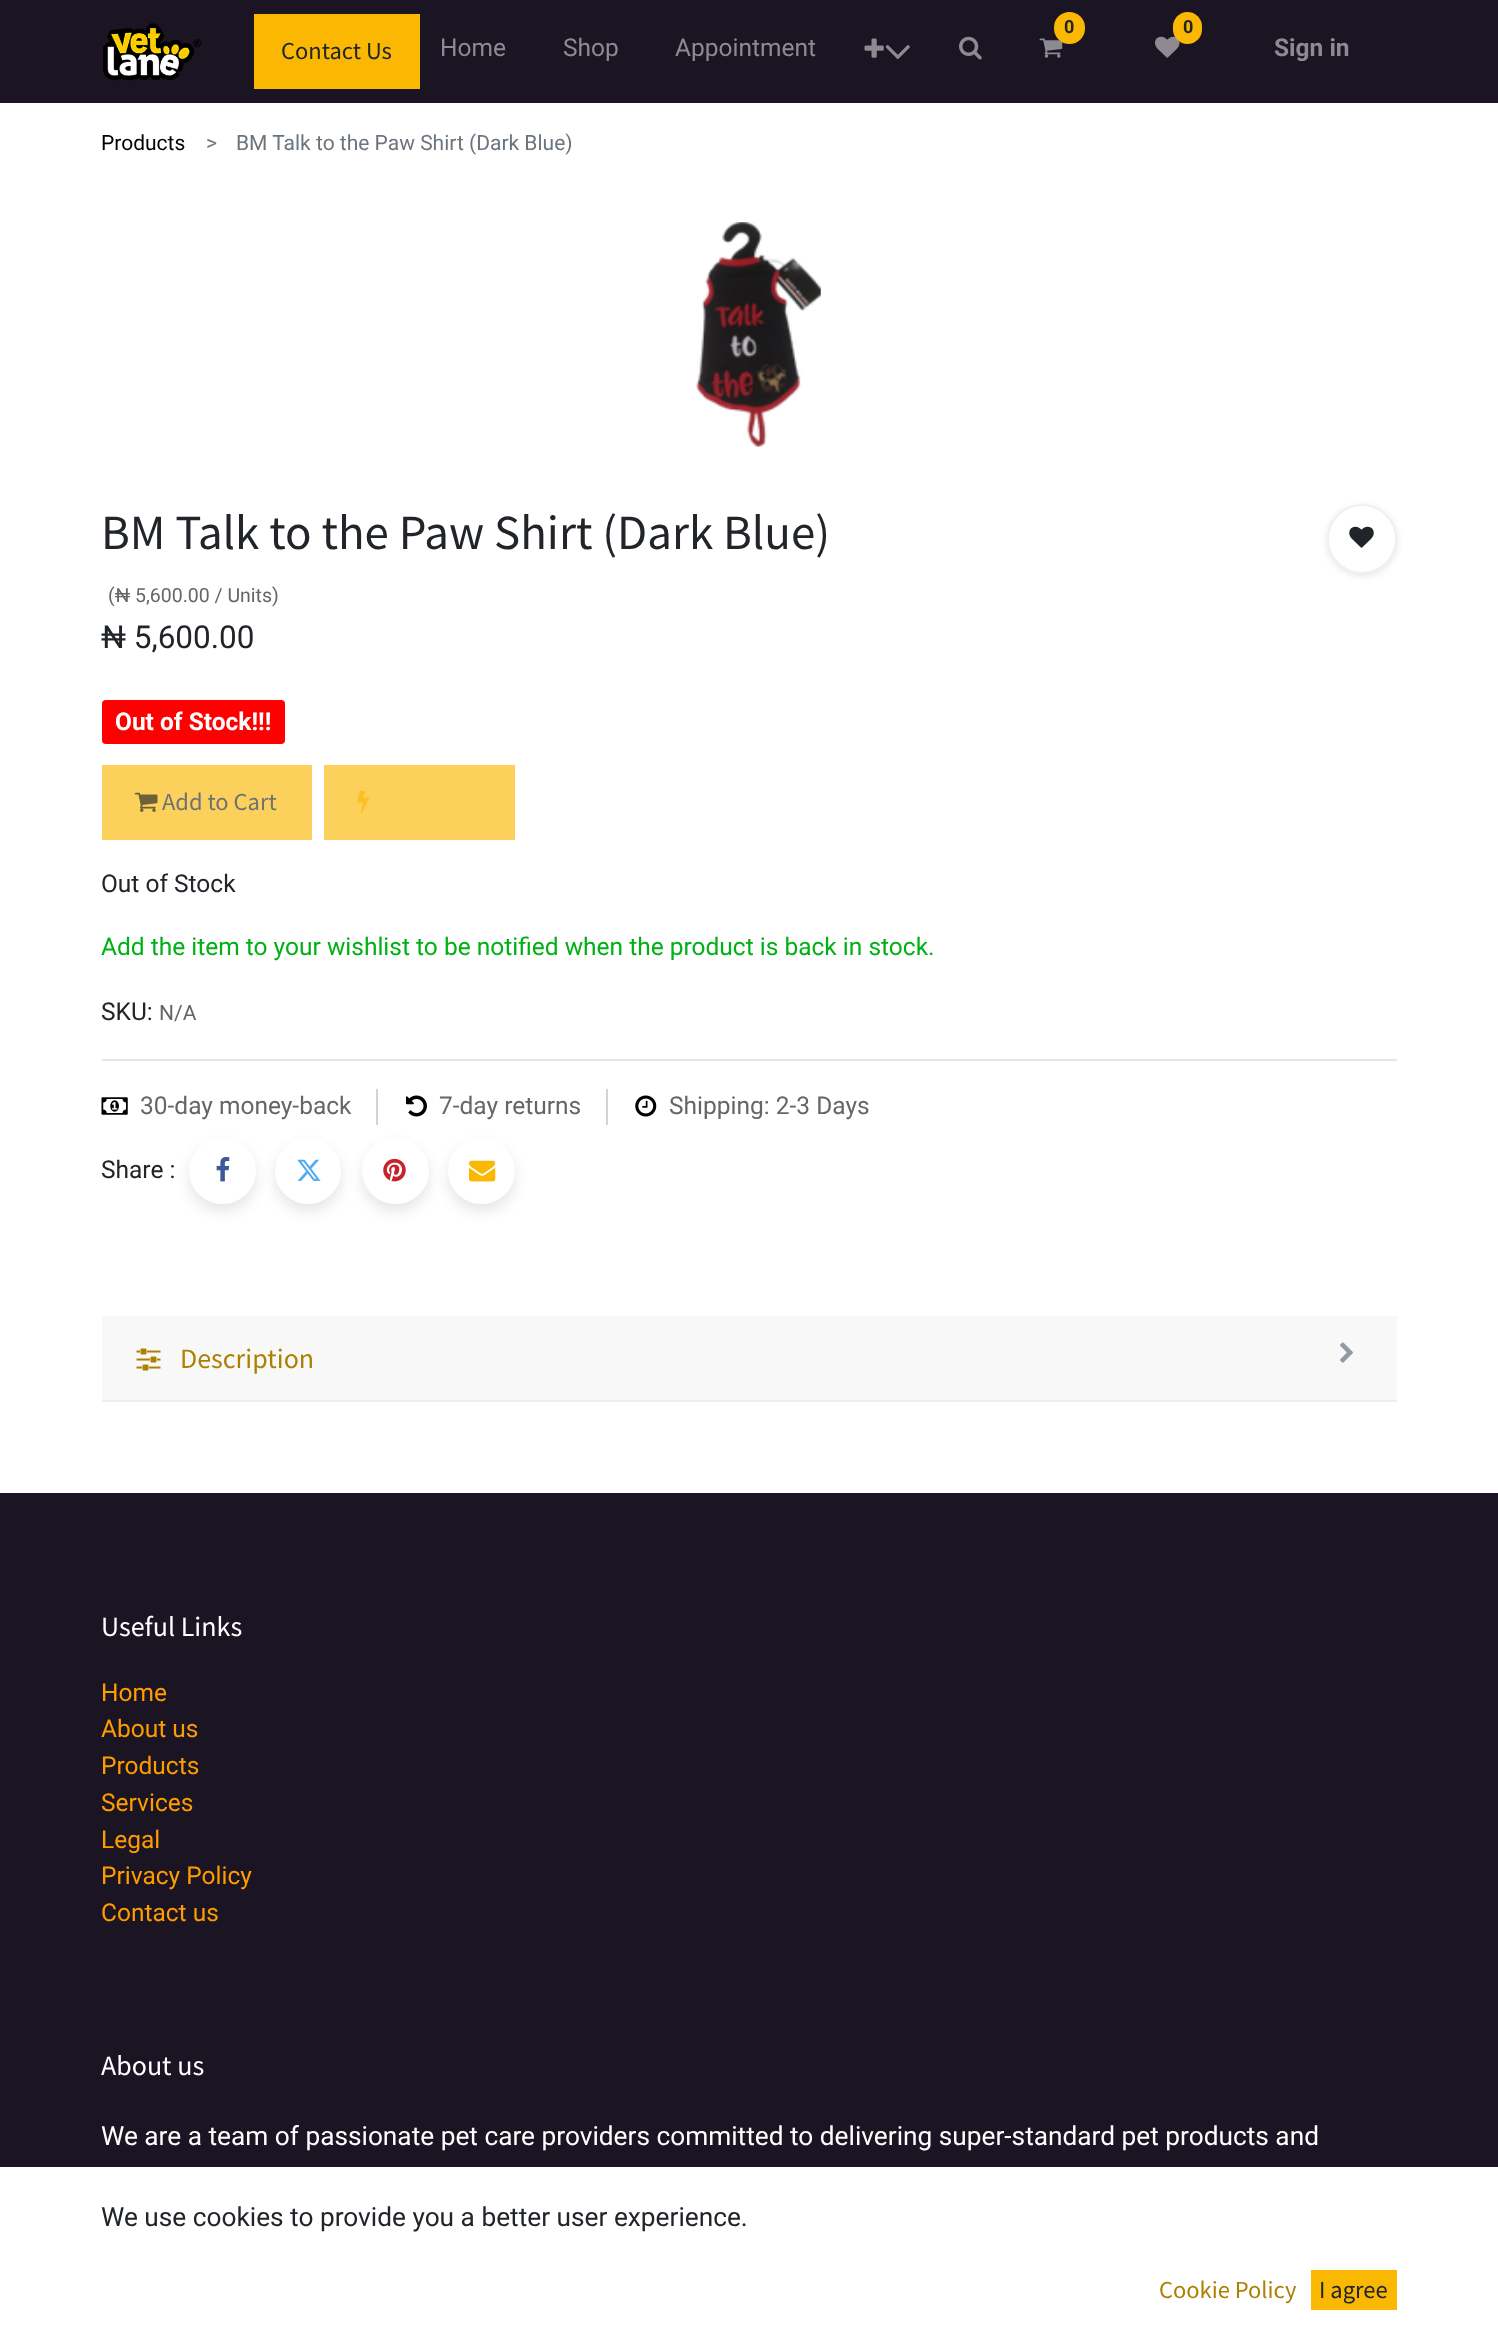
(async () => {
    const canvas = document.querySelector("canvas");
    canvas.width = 1498;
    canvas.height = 2337;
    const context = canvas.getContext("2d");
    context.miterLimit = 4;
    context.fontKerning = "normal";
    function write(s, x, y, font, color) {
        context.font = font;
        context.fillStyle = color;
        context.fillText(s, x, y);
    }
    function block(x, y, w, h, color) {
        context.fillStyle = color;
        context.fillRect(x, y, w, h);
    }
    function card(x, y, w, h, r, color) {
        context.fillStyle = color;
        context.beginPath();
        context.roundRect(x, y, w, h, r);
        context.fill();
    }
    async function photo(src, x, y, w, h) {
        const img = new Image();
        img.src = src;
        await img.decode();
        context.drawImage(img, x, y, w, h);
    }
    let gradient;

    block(0, 0, 1498, 2337, "rgb(255, 255, 255)");
    block(0, 0, 1498, 103, "rgb(26, 20, 35)");
    await photo("media/1.png", 103, 23, 99, 58);
    block(254, 14, 166, 75, "rgb(250, 184, 3)");
    write("Contact Us", 281, 59, "24.5px Source Sans Pro", "rgb(33, 37, 41)");
    await photo("media/2.png", 1039, 38, 24, 20);
    card(1054, 12, 31, 32, 15.5, "rgb(250, 184, 3)");
    write("0", 1064, 33, "bold 18px Roboto", "rgb(33, 37, 41)");
    await photo("media/3.png", 1155, 36, 25, 22);
    card(1173, 12, 29, 32, 14.5, "rgb(250, 184, 3)");
    write("0", 1183, 33, "bold 18px Roboto", "rgb(33, 37, 41)");
    write("Home", 440, 56, "24.5px Roboto", "rgb(141, 138, 145)");
    write("Shop", 563, 56, "24.5px Roboto", "rgb(141, 138, 145)");
    write("Appointment", 675, 56, "24.5px Roboto", "rgb(141, 138, 145)");
    await photo("media/4.png", 864, 38, 20, 20);
    await photo("media/5.png", 885, 45, 25, 15);
    await photo("media/6.png", 959, 36, 23, 24);
    write("Sign in", 1274, 56, "bold 24.5px Roboto", "rgb(141, 138, 145)");
    write("Products", 101, 150, "21px Roboto", "rgb(0, 0, 0)");
    write(">", 206, 150, "21px Roboto", "rgb(108, 117, 125)");
    write("BM Talk to the Paw Shirt (Dark Blue)", 236, 150, "21px Roboto", "rgb(108, 117, 125)");
    await photo("media/7.png", 696, 222, 125, 225);
    write("BM Talk to the Paw Shirt (Dark Blue)", 101, 549, "49px Source Sans Pro", "rgb(33, 37, 41)");
    context.fillStyle = "rgba(0, 0, 0, 0.1)";
    context.filter = "blur(3.5px)";
    context.beginPath();
    context.roundRect(1327, 506, 70, 70, 35);
    context.fill();
    context.filter = "none";
    context.fillStyle = "rgb(255, 255, 255)";
    context.beginPath();
    context.arc(1362, 539, 34, 0, Math.PI * 2);
    context.fill();
    context.strokeStyle = "rgb(240, 240, 240)";
    context.lineWidth = 2;
    context.stroke();
    await photo("media/8.png", 1349, 526, 25, 22);
    write("(₦ 5,600.00 / Units)", 108, 602, "19.5px Roboto", "rgb(100, 102, 105)");
    write("₦ 5,600.00", 101, 648, "31.5px Roboto", "rgb(33, 37, 41)");
    card(102, 700, 183, 44, 4, "rgb(255, 0, 0)");
    write("Out of Stock!!!", 115, 730, "bold 24.5px Roboto", "rgb(255, 255, 255)");
    block(102, 765, 210, 75, "rgb(252, 209, 91)");
    await photo("media/9.png", 134, 792, 24, 20);
    write("Add to Cart", 162, 810, "24.5px Source Sans Pro", "rgb(111, 113, 116)");
    gradient = context.createLinearGradient(324, 802, 896, 802);
    gradient.addColorStop(0, "rgb(252, 209, 91)");
    gradient.addColorStop(0.33, "rgb(252, 209, 91)");
    gradient.addColorStop(0.67, "rgb(120, 120, 120)");
    gradient.addColorStop(1, "rgb(120, 120, 120)");
    context.fillStyle = gradient;
    context.fillRect(324, 765, 191, 75);
    await photo("media/10.png", 357, 791, 13, 23);
    write("Out of Stock", 101, 892, "24.5px Roboto", "rgb(33, 37, 41)");
    write("Add the item to your wishlist to be notified when the product is back in stock.", 101, 955, "24.5px Roboto", "rgb(0, 177, 21)");
    write("SKU:", 101, 1020, "24.5px Roboto", "rgb(33, 37, 41)");
    write("N/A", 159, 1020, "21px Roboto", "rgb(100, 102, 105)");
    block(102, 1059, 1295, 2, "rgb(230, 230, 230)");
    block(376, 1089, 2, 36, "rgb(211, 211, 211)");
    await photo("media/11.png", 101, 1097, 27, 18);
    write("30-day money-back", 140, 1114, "24.5px Roboto", "rgb(100, 102, 105)");
    block(606, 1089, 2, 36, "rgb(211, 211, 211)");
    await photo("media/12.png", 406, 1095, 21, 22);
    write("7-day returns", 439, 1114, "24.5px Roboto", "rgb(100, 102, 105)");
    await photo("media/13.png", 635, 1095, 22, 22);
    write("Shipping: 2-3 Days", 669, 1114, "24.5px Roboto", "rgb(100, 102, 105)");
    write("Share :", 101, 1178, "24.5px Roboto", "rgb(33, 37, 41)");
    context.fillStyle = "rgba(0, 0, 0, 0.1)";
    context.filter = "blur(7px)";
    context.beginPath();
    context.roundRect(189, 1145, 67, 66, 33);
    context.fill();
    context.filter = "none";
    card(189, 1138, 67, 66, 33, "rgb(255, 255, 255)");
    await photo("media/14.png", 216, 1157, 14, 25);
    context.fillStyle = "rgba(0, 0, 0, 0.1)";
    context.filter = "blur(7px)";
    context.beginPath();
    context.roundRect(275, 1145, 66, 66, 33);
    context.fill();
    context.filter = "none";
    context.fillStyle = "rgb(255, 255, 255)";
    context.beginPath();
    context.arc(308, 1171, 33, 0, Math.PI * 2);
    context.fill();
    await photo("media/15.png", 297, 1159, 24, 22);
    context.fillStyle = "rgba(0, 0, 0, 0.1)";
    context.filter = "blur(7px)";
    context.beginPath();
    context.roundRect(362, 1145, 67, 66, 33);
    context.fill();
    context.filter = "none";
    card(362, 1138, 67, 66, 33, "rgb(255, 255, 255)");
    await photo("media/16.png", 383, 1158, 23, 24);
    context.fillStyle = "rgba(0, 0, 0, 0.1)";
    context.filter = "blur(7px)";
    context.beginPath();
    context.roundRect(448, 1145, 67, 66, 33);
    context.fill();
    context.filter = "none";
    card(448, 1138, 67, 66, 33, "rgb(255, 255, 255)");
    await photo("media/17.png", 469, 1160, 27, 22);
    block(102, 1316, 1295, 84, "rgb(248, 248, 248)");
    block(102, 1400, 1295, 2, "rgb(237, 237, 237)");
    await photo("media/18.png", 136, 1348, 25, 23);
    write("Description", 180, 1368, "28px Source Sans Pro", "rgb(174, 128, 2)");
    await photo("media/19.png", 1340, 1342, 13, 21);
    block(0, 1493, 1498, 674, "rgb(26, 20, 35)");
    write("Useful Links", 101, 1636, "28px Source Sans Pro", "rgb(255, 255, 255)");
    write("Home", 101, 1701, "24.5px Roboto", "rgb(255, 156, 0)");
    write("About us", 101, 1737, "24.5px Roboto", "rgb(255, 156, 0)");
    write("Products", 101, 1774, "24.5px Roboto", "rgb(255, 156, 0)");
    write("Services", 101, 1811, "24.5px Roboto", "rgb(255, 156, 0)");
    write("Legal", 101, 1848, "24.5px Roboto", "rgb(255, 156, 0)");
    write("Privacy Policy", 101, 1884, "24.5px Roboto", "rgb(255, 156, 0)");
    write("Contact us", 101, 1921, "24.5px Roboto", "rgb(255, 156, 0)");
    write("About us", 101, 2075, "28px Source Sans Pro", "rgb(255, 255, 255)");
    write("We are a team of passionate pet care providers committed to delivering super-standard pet products and", 101, 2145, "26.25px Roboto", "rgb(255, 255, 255)");
    write("We use cookies to provide you a better user experience.", 101, 2226, "26.25px Roboto", "rgb(33, 37, 41)");
    write("Cookie Policy", 1159, 2298, "24.5px Source Sans Pro", "rgb(174, 128, 2)");
    block(1311, 2270, 86, 40, "rgb(250, 184, 3)");
    write("I agree", 1319, 2298, "24.5px Source Sans Pro", "rgb(33, 37, 41)");
})();
